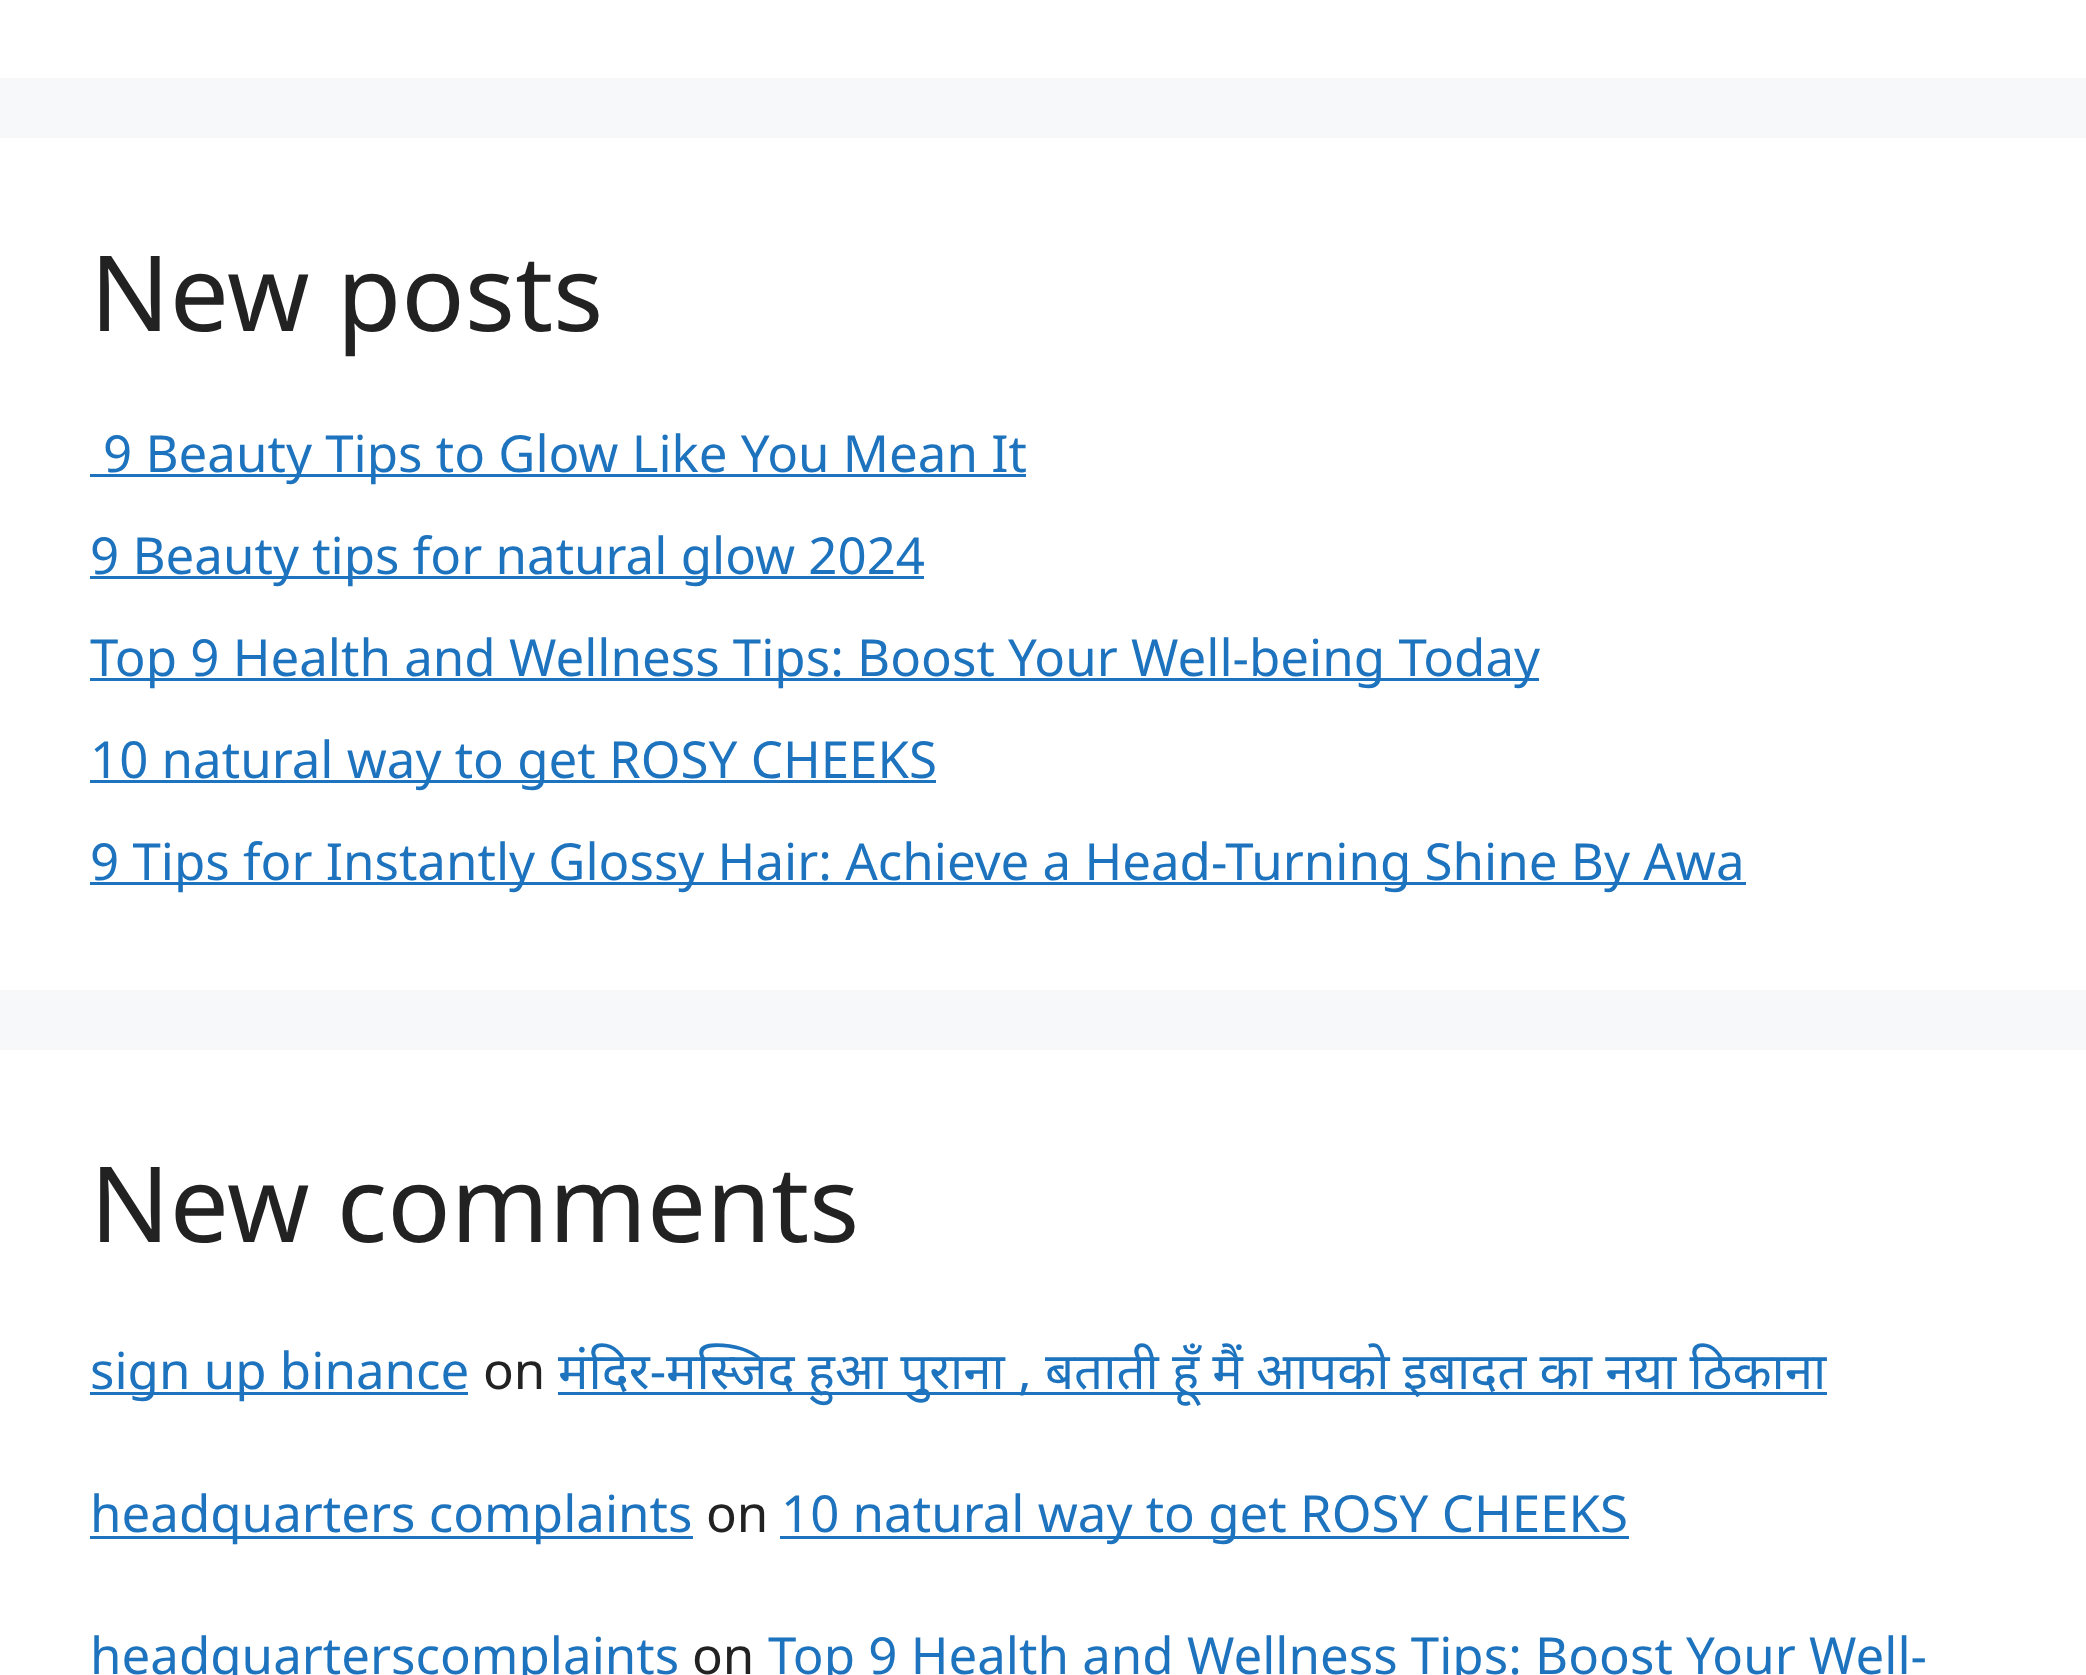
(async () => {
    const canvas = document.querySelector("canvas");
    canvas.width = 2086;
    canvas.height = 1675;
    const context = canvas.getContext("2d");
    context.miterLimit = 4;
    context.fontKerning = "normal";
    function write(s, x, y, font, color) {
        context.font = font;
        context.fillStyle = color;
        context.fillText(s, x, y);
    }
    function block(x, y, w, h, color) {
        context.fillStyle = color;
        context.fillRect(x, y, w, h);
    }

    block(0, 0, 2086, 1675, "rgb(247, 248, 249)");
    block(0, 0, 2086, 78, "rgb(255, 255, 255)");
    block(0, 138, 2086, 852, "rgb(255, 255, 255)");
    write("New posts", 90, 331, "105px Noto Sans", "rgb(34, 34, 34)");
    block(90, 474, 936, 3, "rgb(30, 115, 190)");
    write("9 Beauty Tips to Glow Like You Mean It", 103, 472, "51px Noto Sans", "rgb(30, 115, 190)");
    block(90, 576, 834, 3, "rgb(30, 115, 190)");
    write("9 Beauty tips for natural glow 2024", 90, 574, "51px Noto Sans", "rgb(30, 115, 190)");
    block(90, 678, 1449, 3, "rgb(30, 115, 190)");
    write("Top 9 Health and Wellness Tips: Boost Your Well-being Today", 90, 676, "51px Noto Sans", "rgb(30, 115, 190)");
    block(90, 780, 846, 3, "rgb(30, 115, 190)");
    write("10 natural way to get ROSY CHEEKS", 90, 778, "51px Noto Sans", "rgb(30, 115, 190)");
    block(90, 882, 1656, 3, "rgb(30, 115, 190)");
    write("9 Tips for Instantly Glossy Hair: Achieve a Head-Turning Shine By Awa", 90, 880, "51px Noto Sans", "rgb(30, 115, 190)");
    block(0, 1050, 2086, 625, "rgb(255, 255, 255)");
    write("New comments", 90, 1242, "105px Noto Sans", "rgb(34, 34, 34)");
    block(90, 1392, 378, 3, "rgb(30, 115, 190)");
    write("sign up binance", 90, 1389, "51px Noto Sans", "rgb(30, 115, 190)");
    write("on", 483, 1389, "51px Noto Sans", "rgb(34, 34, 34)");
    block(558, 1392, 1269, 3, "rgb(30, 115, 190)");
    write("मंदिर-मस्जिद हुआ पुराना , बताती हूँ मैं आपको इबादत का नया ठिकाना", 558, 1389, "51px Noto Sans", "rgb(30, 115, 190)");
    block(90, 1536, 603, 3, "rgb(30, 115, 190)");
    write("headquarters complaints", 90, 1532, "51px Noto Sans", "rgb(30, 115, 190)");
    write("on", 706, 1532, "51px Noto Sans", "rgb(34, 34, 34)");
    block(780, 1536, 849, 3, "rgb(30, 115, 190)");
    write("10 natural way to get ROSY CHEEKS", 781, 1532, "51px Noto Sans", "rgb(30, 115, 190)");
    write("headquarterscomplaints", 90, 1674, "51px Noto Sans", "rgb(30, 115, 190)");
    write("on", 692, 1674, "51px Noto Sans", "rgb(34, 34, 34)");
    write("Top 9 Health and Wellness Tips: Boost Your Well-", 768, 1674, "51px Noto Sans", "rgb(30, 115, 190)");
})();
